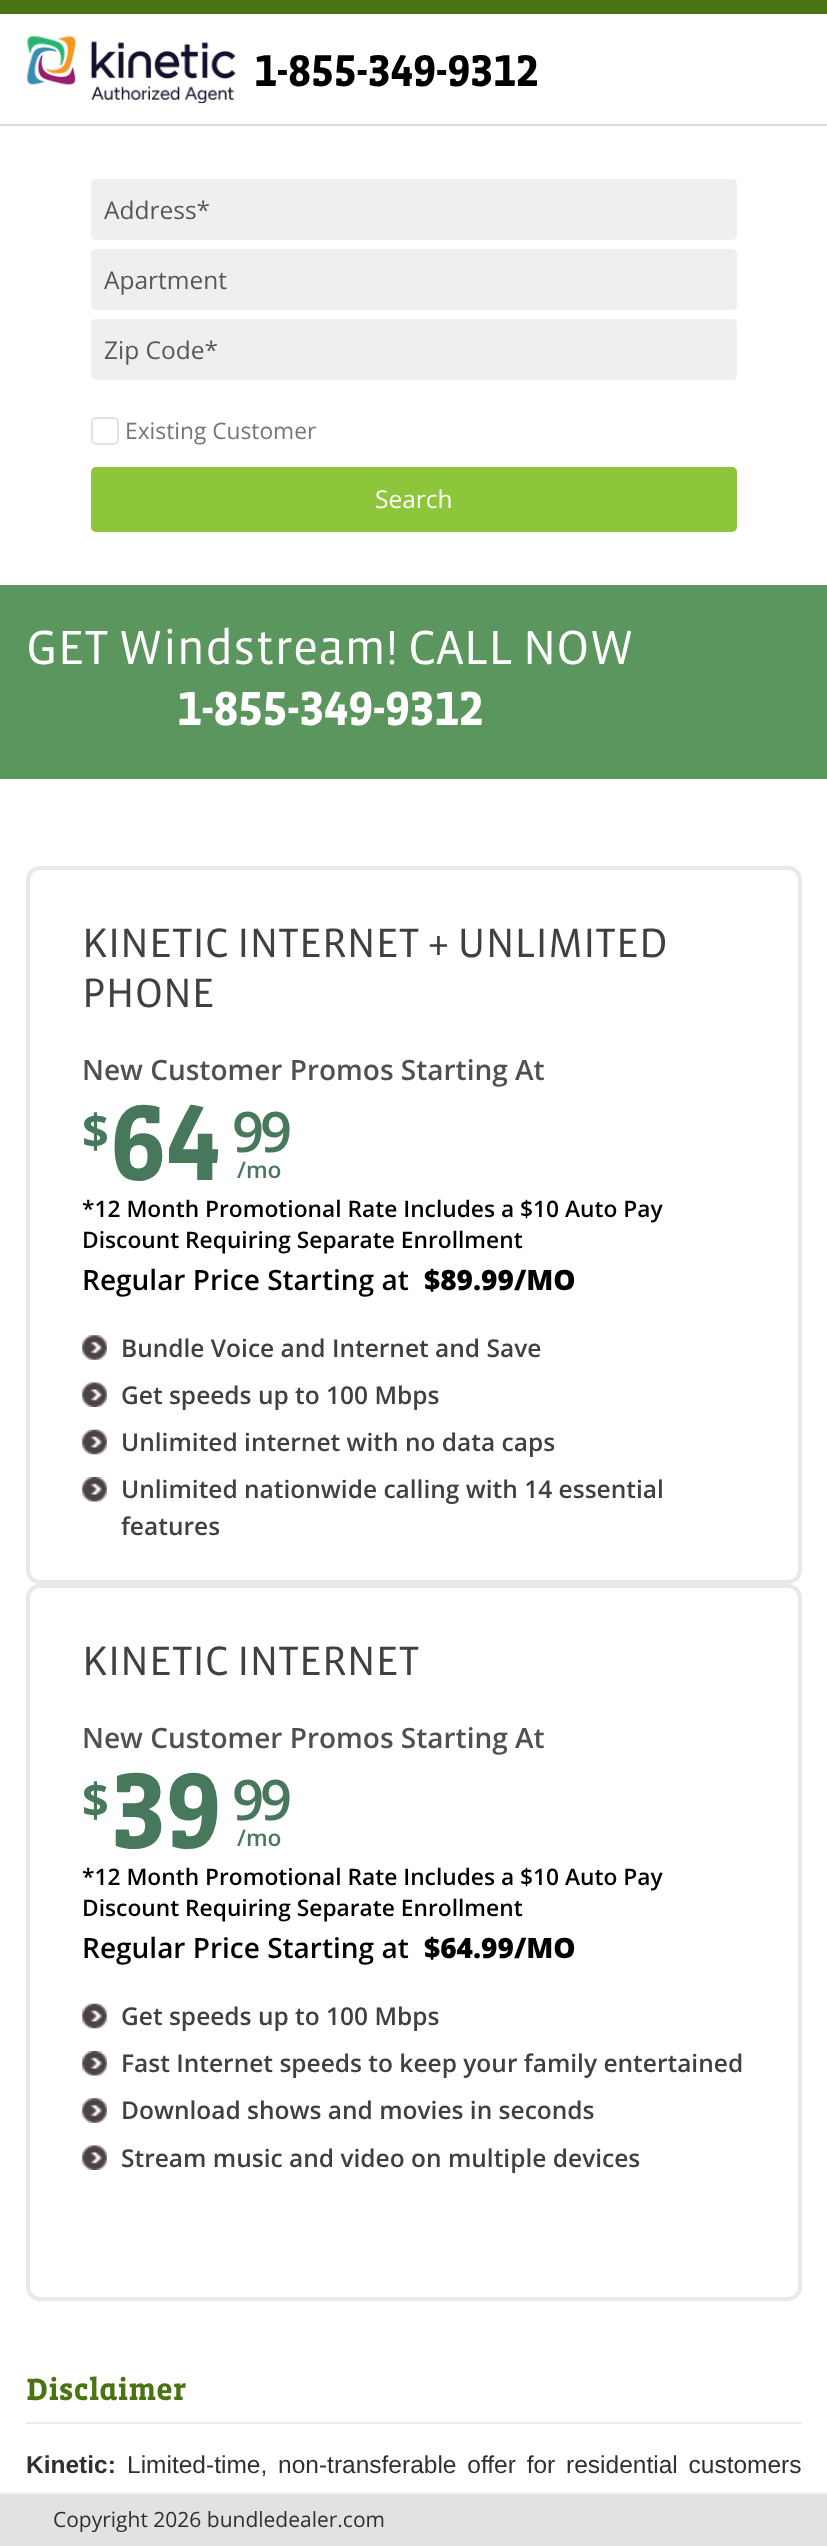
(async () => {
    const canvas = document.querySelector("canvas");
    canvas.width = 827;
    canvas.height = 2546;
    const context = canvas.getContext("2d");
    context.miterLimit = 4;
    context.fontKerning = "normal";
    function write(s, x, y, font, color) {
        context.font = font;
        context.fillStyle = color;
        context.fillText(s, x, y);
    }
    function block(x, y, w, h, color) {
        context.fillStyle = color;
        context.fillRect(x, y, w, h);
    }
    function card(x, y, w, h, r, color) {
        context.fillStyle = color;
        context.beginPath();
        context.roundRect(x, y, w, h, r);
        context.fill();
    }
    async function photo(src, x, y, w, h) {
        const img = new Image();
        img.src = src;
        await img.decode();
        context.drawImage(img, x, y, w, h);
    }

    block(0, 0, 827, 2546, "rgb(255, 255, 255)");
    block(0, 0, 827, 14, "rgb(74, 116, 17)");
    block(0, 124, 827, 2, "rgb(218, 218, 218)");
    await photo("media/1.png", 27, 36, 209, 68);
    write("1-855-349-9312", 254, 86, "bold 45.5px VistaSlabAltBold", "rgb(0, 0, 0)");
    card(91, 179, 646, 61, 5, "rgb(239, 239, 239)");
    write("Address*", 104, 219, "24.5px Open Sans", "rgb(85, 88, 91)");
    card(91, 249, 646, 61, 5, "rgb(239, 239, 239)");
    write("Apartment", 104, 289, "24.5px Open Sans", "rgb(85, 88, 91)");
    card(91, 319, 646, 61, 5, "rgb(239, 239, 239)");
    write("Zip Code*", 104, 359, "24.5px Open Sans", "rgb(85, 88, 91)");
    context.beginPath();
    context.roundRect(92, 418, 26, 26, 4);
    context.strokeStyle = "rgb(224, 227, 228)";
    context.lineWidth = 2;
    context.stroke();
    write("Existing Customer", 125, 439, "22.75px Open Sans", "rgb(118, 118, 118)");
    card(91, 467, 646, 65, 5, "rgb(141, 198, 59)");
    write("Search", 375, 508, "24.5px Open Sans", "rgb(255, 255, 255)");
    block(0, 585, 827, 194, "rgb(91, 150, 94)");
    write("GET Windstream! CALL NOW", 26, 664, "49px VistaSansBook", "rgb(255, 255, 255)");
    write("1-855-349-9312", 177, 725, "bold 49px VistaSlabAltBold", "rgb(255, 255, 255)");
    context.beginPath();
    context.roundRect(28, 868, 772, 714, 12);
    context.strokeStyle = "rgb(232, 233, 233)";
    context.lineWidth = 4;
    context.stroke();
    write("KINETIC INTERNET + UNLIMITED", 82, 957, "42px VistaSansBook", "rgb(64, 64, 64)");
    write("PHONE", 82, 1007, "42px VistaSansBook", "rgb(64, 64, 64)");
    write("New Customer Promos Starting At", 82, 1080, "600 28px Open Sans", "rgb(80, 80, 80)");
    write("$", 82, 1148, "bold 47px Open Sans", "rgb(72, 120, 91)");
    write("64", 111, 1180, "bold 110px VistaSlabAltBold", "rgb(72, 120, 91)");
    context.letterSpacing = "-4px";
    write("99", 232, 1152, "600 56px Open Sans", "rgb(72, 120, 91)");
    context.letterSpacing = "0px";
    write("/mo", 237, 1178, "600 22.75px Open Sans", "rgb(72, 120, 91)");
    write("*12 Month Promotional Rate Includes a $10 Auto Pay", 82, 1217, "600 22.75px Open Sans", "rgb(0, 0, 0)");
    write("Discount Requiring Separate Enrollment", 82, 1248, "600 22.75px Open Sans", "rgb(0, 0, 0)");
    write("Regular Price Starting at", 82, 1290, "600 28px Open Sans", "rgb(0, 0, 0)");
    write("$89.99/MO", 424, 1290, "800 28px Open Sans", "rgb(0, 0, 0)");
    await photo("media/2.png", 82, 1335, 25, 25);
    write("Bundle Voice and Internet and Save", 121, 1357, "600 24.5px Open Sans", "rgb(64, 64, 64)");
    await photo("media/3.png", 82, 1382, 25, 25);
    write("Get speeds up to 100 Mbps", 121, 1404, "600 24.5px Open Sans", "rgb(64, 64, 64)");
    await photo("media/4.png", 82, 1429, 25, 26);
    write("Unlimited internet with no data caps", 121, 1451, "600 24.5px Open Sans", "rgb(64, 64, 64)");
    await photo("media/5.png", 82, 1477, 25, 25);
    write("Unlimited nationwide calling with 14 essential", 121, 1498, "600 24.5px Open Sans", "rgb(64, 64, 64)");
    write("features", 121, 1535, "600 24.5px Open Sans", "rgb(64, 64, 64)");
    context.beginPath();
    context.roundRect(28, 1586, 772, 713, 12);
    context.stroke();
    write("KINETIC INTERNET", 82, 1675, "42px VistaSansBook", "rgb(64, 64, 64)");
    write("New Customer Promos Starting At", 82, 1748, "600 28px Open Sans", "rgb(80, 80, 80)");
    write("$", 82, 1817, "bold 47px Open Sans", "rgb(72, 120, 91)");
    write("39", 111, 1848, "bold 110px VistaSlabAltBold", "rgb(72, 120, 91)");
    context.letterSpacing = "-4px";
    write("99", 232, 1820, "600 56px Open Sans", "rgb(72, 120, 91)");
    context.letterSpacing = "0px";
    write("/mo", 237, 1846, "600 22.75px Open Sans", "rgb(72, 120, 91)");
    write("*12 Month Promotional Rate Includes a $10 Auto Pay", 82, 1885, "600 22.75px Open Sans", "rgb(0, 0, 0)");
    write("Discount Requiring Separate Enrollment", 82, 1916, "600 22.75px Open Sans", "rgb(0, 0, 0)");
    write("Regular Price Starting at", 82, 1958, "600 28px Open Sans", "rgb(0, 0, 0)");
    write("$64.99/MO", 424, 1958, "800 28px Open Sans", "rgb(0, 0, 0)");
    await photo("media/4.png", 82, 2003, 25, 26);
    write("Get speeds up to 100 Mbps", 121, 2025, "600 24.5px Open Sans", "rgb(64, 64, 64)");
    await photo("media/5.png", 82, 2051, 25, 25);
    write("Fast Internet speeds to keep your family entertained", 121, 2072, "600 24.5px Open Sans", "rgb(64, 64, 64)");
    await photo("media/2.png", 82, 2098, 25, 25);
    write("Download shows and movies in seconds", 121, 2119, "600 24.5px Open Sans", "rgb(64, 64, 64)");
    await photo("media/3.png", 82, 2145, 25, 25);
    write("Stream music and video on multiple devices", 121, 2167, "600 24.5px Open Sans", "rgb(64, 64, 64)");
    block(26, 2422, 776, 2, "rgb(236, 236, 236)");
    write("Disclaimer", 26, 2400, "bold 31.5px VistaSlabAltBold", "rgb(74, 116, 17)");
    write("Kinetic:", 26, 2473, "bold 24.5px Liberation Sans", "rgb(48, 48, 48)");
    context.wordSpacing = "4px";
    write("Limited-time, non-transferable offer for residential customers", 127, 2473, "24.5px Liberation Sans", "rgb(48, 48, 48)");
    block(0, 2494, 827, 52, "rgb(227, 225, 226)");
    block(0, 2492, 827, 2, "rgb(243, 243, 243)");
    context.wordSpacing = "0px";
    write("Copyright 2026 bundledealer.com", 53, 2527, "21px Open Sans", "rgb(48, 48, 48)");
})();
